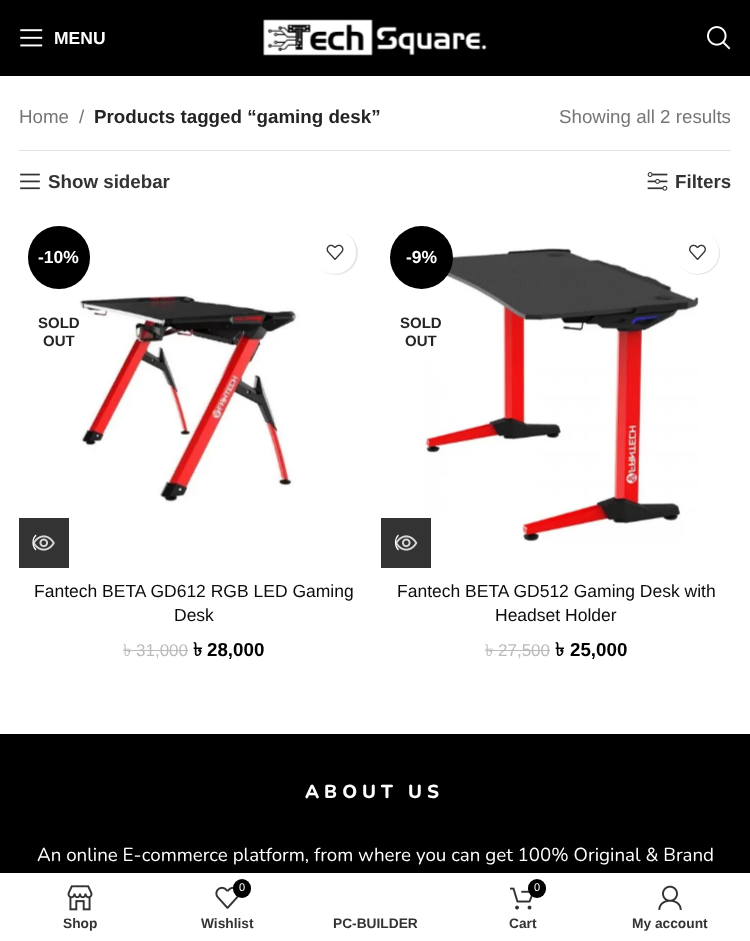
(async () => {
    const canvas = document.querySelector("canvas");
    canvas.width = 750;
    canvas.height = 941;
    const context = canvas.getContext("2d");
    context.miterLimit = 4;
    context.fontKerning = "normal";
    function write(s, x, y, font, color) {
        context.font = font;
        context.fillStyle = color;
        context.fillText(s, x, y);
    }
    function block(x, y, w, h, color) {
        context.fillStyle = color;
        context.fillRect(x, y, w, h);
    }
    function card(x, y, w, h, r, color) {
        context.fillStyle = color;
        context.beginPath();
        context.roundRect(x, y, w, h, r);
        context.fill();
    }
    async function photo(src, x, y, w, h) {
        const img = new Image();
        img.src = src;
        await img.decode();
        context.drawImage(img, x, y, w, h);
    }

    block(0, 0, 750, 941, "rgb(255, 255, 255)");
    block(0, 0, 750, 76, "rgb(0, 0, 0)");
    await photo("media/1.png", 20, 29, 23, 18);
    write("MENU", 54, 44, "bold 17.5px Liberation Sans", "rgb(255, 255, 255)");
    await photo("media/2.png", 263, 19, 224, 37);
    await photo("media/3.png", 707, 26, 24, 24);
    block(19, 150, 712, 1, "rgb(228, 228, 228)");
    write("Home", 19, 123, "18.75px Liberation Sans", "rgb(118, 118, 118)");
    write("/", 79, 123, "18.75px Liberation Sans", "rgb(118, 118, 118)");
    write("Products tagged “gaming desk”", 94, 123, "bold 18.75px Liberation Sans", "rgb(36, 36, 36)");
    write("Showing all 2 results", 559, 123, "18.75px Liberation Sans", "rgb(118, 118, 118)");
    await photo("media/4.png", 20, 173, 20, 17);
    write("Show sidebar", 48, 188, "bold 18.75px Liberation Sans", "rgb(51, 51, 51)");
    await photo("media/5.png", 647, 172, 21, 19);
    write("Filters", 675, 188, "bold 18.75px Liberation Sans", "rgb(51, 51, 51)");
    card(28, 226, 62, 63, 31, "rgb(0, 0, 0)");
    write("-10%", 38, 263, "bold 17.5px Liberation Sans", "rgb(255, 255, 255)");
    write("SOLD", 38, 328, "bold 15px Liberation Sans", "rgb(36, 36, 36)");
    write("OUT", 43, 346, "bold 15px Liberation Sans", "rgb(36, 36, 36)");
    await photo("media/6.png", 79, 294, 220, 209);
    context.fillStyle = "rgba(0, 0, 0, 0.1)";
    context.filter = "blur(0.5px)";
    context.beginPath();
    context.roundRect(314, 231, 44, 44, 22);
    context.fill();
    context.filter = "none";
    card(313, 230, 43, 44, 21.5, "rgb(255, 255, 255)");
    await photo("media/7.png", 326, 244, 18, 16);
    block(19, 518, 50, 50, "rgb(51, 51, 51)");
    await photo("media/8.png", 32, 535, 23, 16);
    context.beginPath();
    context.moveTo(36, 550);
    context.bezierCurveTo(32, 546, 32, 539, 36, 535);
    context.strokeStyle = "rgb(255, 255, 255)";
    context.lineWidth = 1.2;
    context.stroke();
    write("Fantech BETA GD612 RGB LED Gaming", 34, 597, "17.5px Liberation Sans", "rgb(12, 12, 12)");
    write("Desk", 174, 621, "17.5px Liberation Sans", "rgb(12, 12, 12)");
    write("৳", 123, 656, "17px Lohit Bengali", "rgb(187, 187, 187)");
    block(123, 650, 13, 1, "rgb(187, 187, 187)");
    write("31,000", 136, 656, "17px Liberation Sans", "rgb(187, 187, 187)");
    block(136, 650, 52, 1, "rgb(187, 187, 187)");
    write("৳", 193, 656, "bold 18.75px Lohit Bengali", "rgb(0, 0, 0)");
    write("28,000", 207, 656, "bold 18.75px Liberation Sans", "rgb(0, 0, 0)");
    await photo("media/9.png", 409, 248, 290, 294);
    context.beginPath();
    context.arc(421.5, 257.5, 31.5, 0, Math.PI * 2);
    context.fill();
    write("-9%", 406, 263, "bold 17.5px Liberation Sans", "rgb(255, 255, 255)");
    write("SOLD", 400, 328, "bold 15px Liberation Sans", "rgb(36, 36, 36)");
    write("OUT", 405, 346, "bold 15px Liberation Sans", "rgb(36, 36, 36)");
    context.fillStyle = "rgba(0, 0, 0, 0.1)";
    context.filter = "blur(0.5px)";
    context.beginPath();
    context.roundRect(676, 231, 44, 44, 22);
    context.fill();
    context.filter = "none";
    context.fillStyle = "rgb(255, 255, 255)";
    context.beginPath();
    context.arc(697, 252, 22, 0, Math.PI * 2);
    context.fill();
    await photo("media/10.png", 689, 244, 17, 16);
    block(381, 518, 50, 50, "rgb(51, 51, 51)");
    await photo("media/11.png", 395, 535, 23, 16);
    context.beginPath();
    context.moveTo(398.5, 550);
    context.bezierCurveTo(394.5, 546, 394.5, 539, 398.5, 535);
    context.stroke();
    write("Fantech BETA GD512 Gaming Desk with", 397, 597, "17.5px Liberation Sans", "rgb(12, 12, 12)");
    write("Headset Holder", 495, 621, "17.5px Liberation Sans", "rgb(12, 12, 12)");
    write("৳", 485, 656, "17px Lohit Bengali", "rgb(187, 187, 187)");
    block(485, 650, 14, 1, "rgb(187, 187, 187)");
    write("27,500", 498, 656, "17px Liberation Sans", "rgb(187, 187, 187)");
    block(499, 650, 51, 1, "rgb(187, 187, 187)");
    write("৳", 555, 656, "bold 18.75px Lohit Bengali", "rgb(0, 0, 0)");
    write("25,000", 570, 656, "bold 18.75px Liberation Sans", "rgb(0, 0, 0)");
    block(0, 734, 750, 139, "rgb(0, 0, 0)");
    context.letterSpacing = "5px";
    write("ABOUT US", 305, 798, "800 18.75px Nunito", "rgb(255, 255, 255)");
    context.letterSpacing = "0px";
    write("An online E-commerce platform, from where you can get 100% Original & Brand", 37, 861, "18.75px Nunito", "rgb(255, 255, 255)");
    await photo("media/12.png", 67, 885, 26, 26);
    write("Shop", 63, 928, "bold 13.75px Liberation Sans", "rgb(51, 51, 51)");
    await photo("media/13.png", 215, 886, 24, 23);
    card(233, 879, 18, 19, 9, "rgb(0, 0, 0)");
    write("0", 239, 891, "11px Liberation Sans", "rgb(255, 255, 255)");
    write("Wishlist", 201, 928, "bold 13.75px Liberation Sans", "rgb(51, 51, 51)");
    write("PC-BUILDER", 333, 928, "bold 13.75px Liberation Sans", "rgb(51, 51, 51)");
    await photo("media/14.png", 510, 887, 23, 23);
    card(528, 879, 18, 19, 9, "rgb(0, 0, 0)");
    write("0", 534, 891, "11px Liberation Sans", "rgb(255, 255, 255)");
    write("Cart", 509, 928, "bold 13.75px Liberation Sans", "rgb(51, 51, 51)");
    await photo("media/15.png", 658, 885, 24, 25);
    write("My account", 632, 928, "bold 13.75px Liberation Sans", "rgb(51, 51, 51)");
})();
